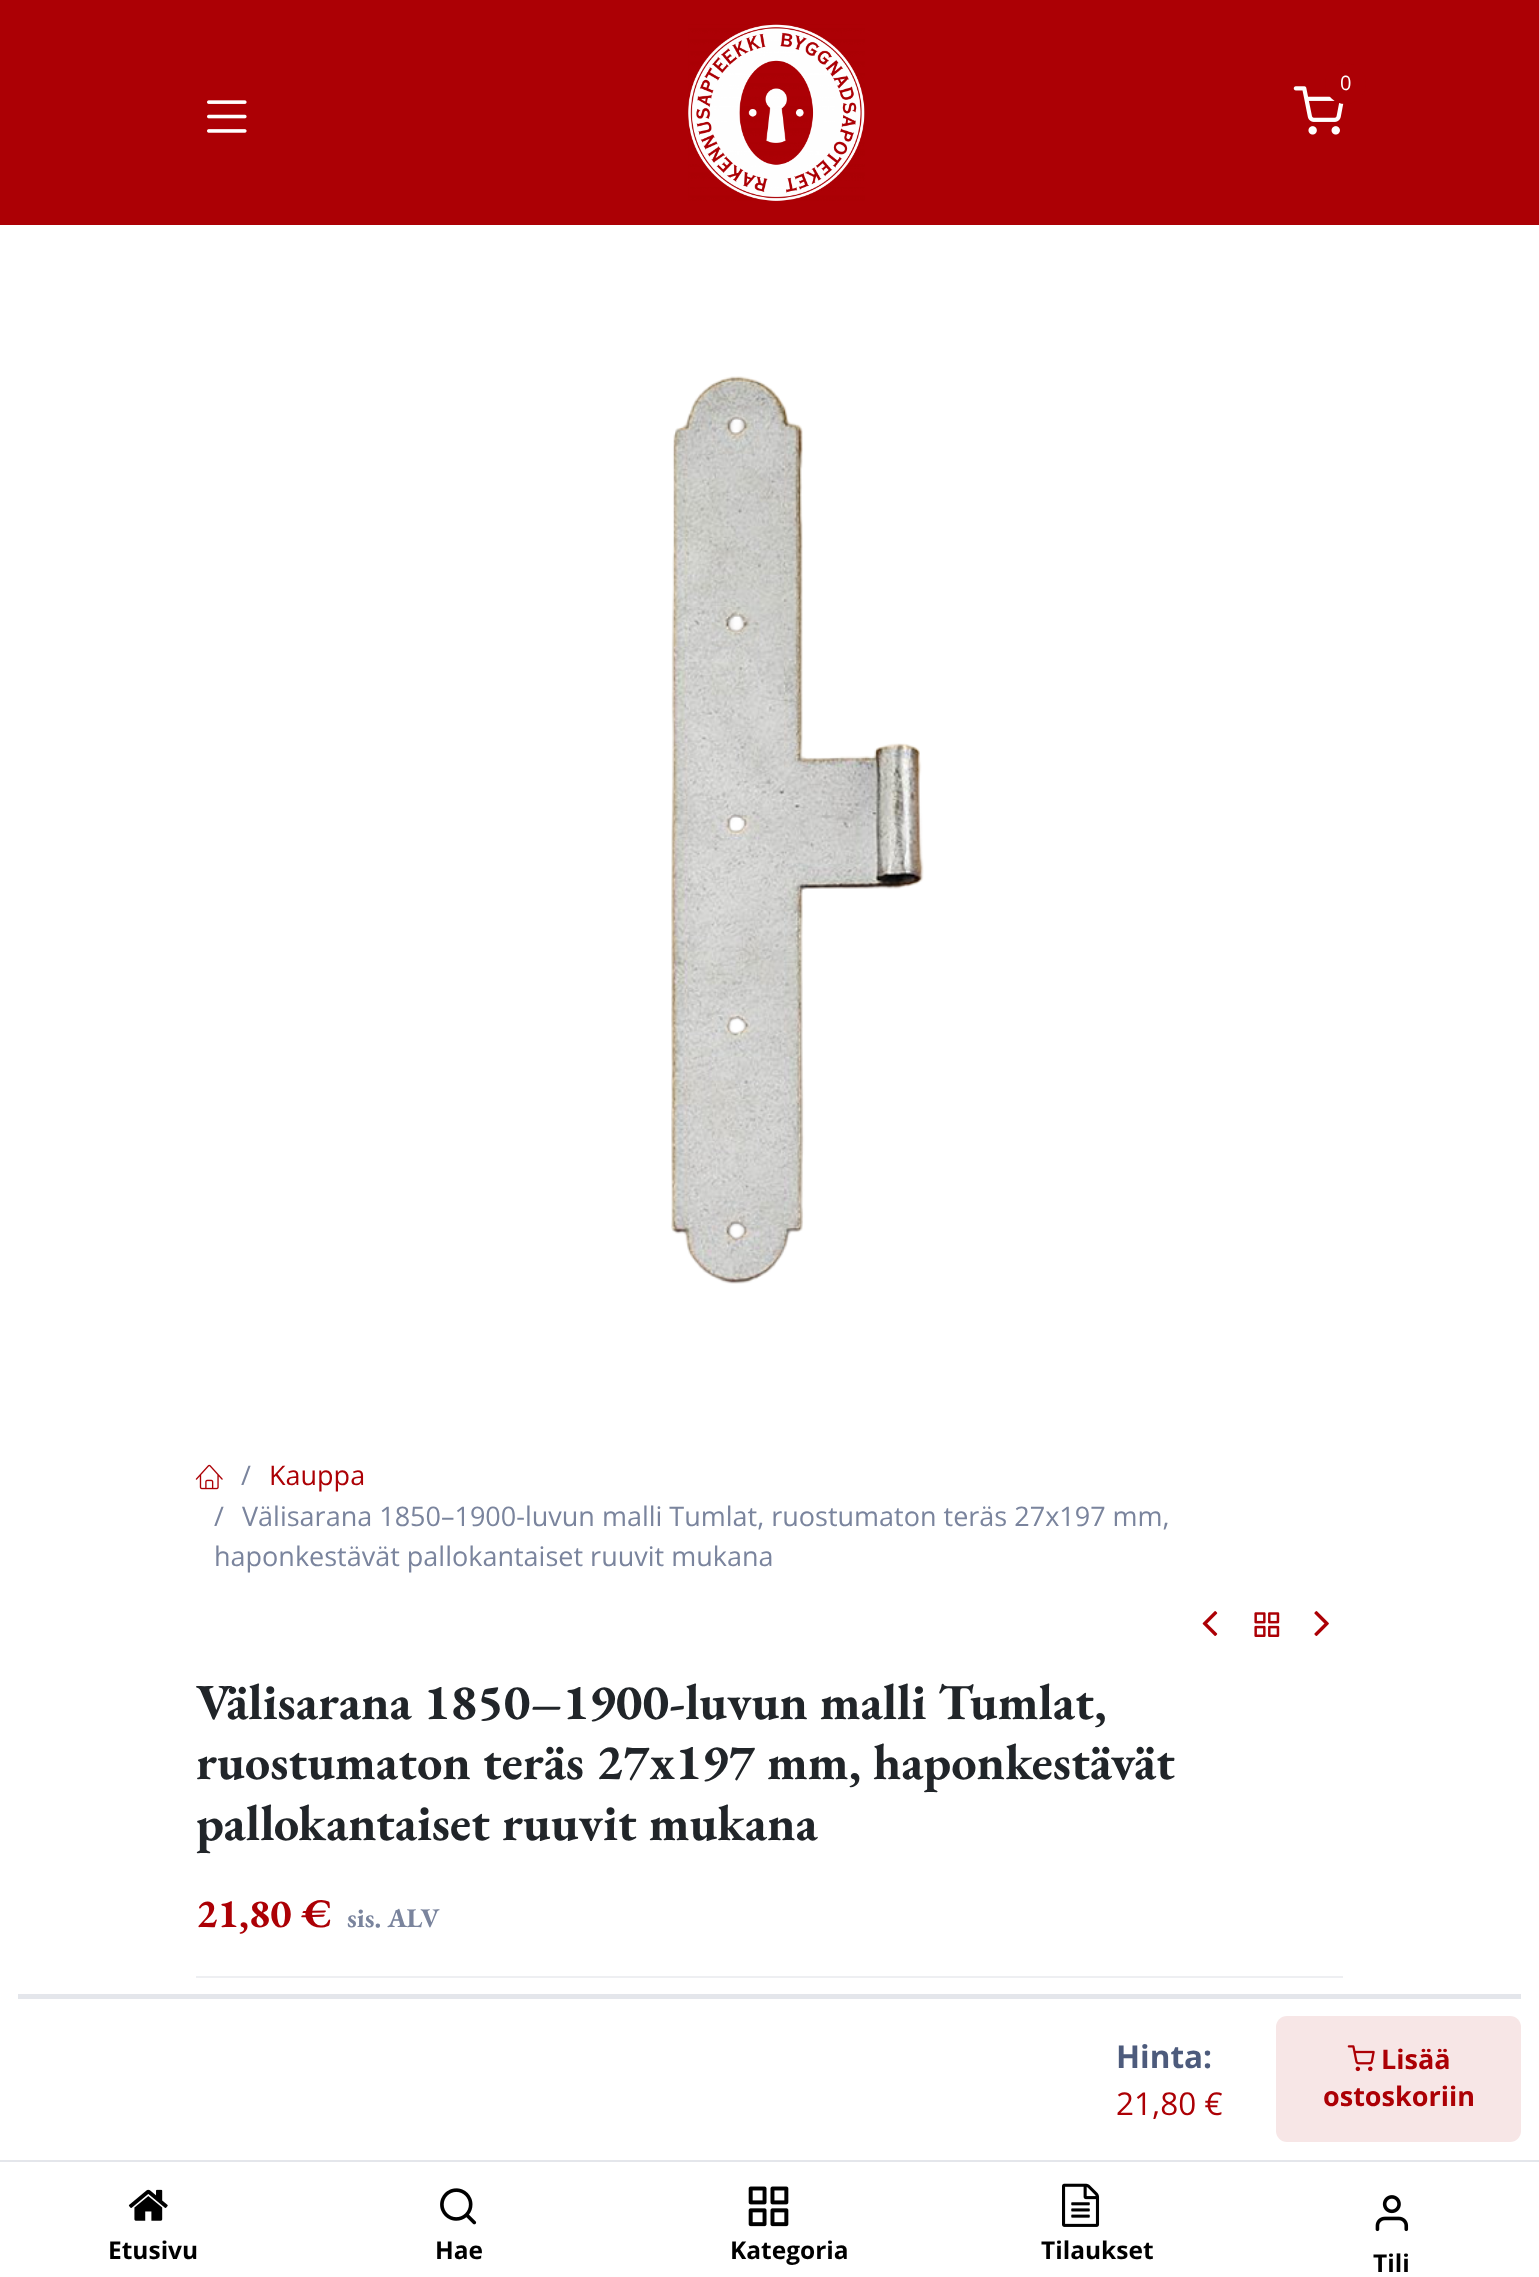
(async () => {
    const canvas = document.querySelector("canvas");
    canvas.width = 1539;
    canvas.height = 2277;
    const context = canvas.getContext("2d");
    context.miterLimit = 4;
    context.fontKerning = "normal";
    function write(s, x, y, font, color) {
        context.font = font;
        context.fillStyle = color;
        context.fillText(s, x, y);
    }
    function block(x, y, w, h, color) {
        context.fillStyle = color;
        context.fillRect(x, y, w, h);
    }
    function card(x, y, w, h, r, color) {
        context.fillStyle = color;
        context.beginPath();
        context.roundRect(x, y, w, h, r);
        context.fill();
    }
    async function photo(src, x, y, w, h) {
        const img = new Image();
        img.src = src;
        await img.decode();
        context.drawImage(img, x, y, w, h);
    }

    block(0, 0, 1539, 2277, "rgb(255, 255, 255)");
    block(0, 0, 1539, 225, "rgb(172, 0, 5)");
    await photo("media/1.png", 688, 24, 177, 177);
    await photo("media/2.png", 1293, 86, 51, 49);
    context.beginPath();
    context.arc(1345.5, 83.5, 20.5, 0, Math.PI * 2);
    context.fill();
    write("0", 1340, 90, "20px Open Sans", "rgb(255, 255, 255)");
    await photo("media/3.png", 207, 100, 40, 33);
    await photo("media/4.png", 671, 376, 253, 908);
    await photo("media/5.png", 195, 1464, 28, 26);
    write("/", 241, 1485, "27px Open Sans", "rgb(122, 132, 157)");
    write("Kauppa", 269, 1485, "27px Open Sans", "rgb(172, 0, 5)");
    write("/", 214, 1526, "27px Open Sans", "rgb(122, 132, 157)");
    write("Välisarana 1850–1900-luvun malli Tumlat, ruostumaton teräs 27x197 mm,", 242, 1526, "27px Open Sans", "rgb(122, 132, 157)");
    write("haponkestävät pallokantaiset ruuvit mukana", 214, 1566, "27px Open Sans", "rgb(122, 132, 157)");
    await photo("media/6.png", 1202, 1611, 16, 25);
    await photo("media/7.png", 1254, 1612, 26, 25);
    await photo("media/8.png", 1314, 1611, 15, 25);
    write("Välisarana 1850–1900-luvun malli Tumlat,", 196, 1719, "bold 50.5px EB Garamond", "rgb(33, 37, 41)");
    write("ruostumaton teräs 27x197 mm, haponkestävät", 196, 1779, "bold 50.5px EB Garamond", "rgb(33, 37, 41)");
    write("pallokantaiset ruuvit mukana", 196, 1840, "bold 50.5px EB Garamond", "rgb(33, 37, 41)");
    write("21,80 €", 196, 1927, "bold 40.5px EB Garamond", "rgb(172, 0, 5)");
    write("sis. ALV", 347, 1927, "bold 27px EB Garamond", "rgb(122, 132, 157)");
    block(196, 1976, 1147, 2, "rgb(238, 239, 242)");
    block(18, 1994, 1503, 5, "rgb(228, 230, 235)");
    block(0, 2160, 1539, 2, "rgb(228, 230, 235)");
    write("Hinta:", 1116, 2068, "bold 31.5px Open Sans", "rgb(77, 91, 124)");
    write("21,80 €", 1116, 2115, "31.5px Open Sans", "rgb(172, 0, 5)");
    card(1276, 2016, 245, 126, 11, "rgb(247, 230, 230)");
    await photo("media/9.png", 1347, 2045, 28, 27);
    write("Lisää", 1381, 2069, "bold 27px 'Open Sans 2'", "rgb(172, 0, 5)");
    write("ostoskoriin", 1323, 2106, "bold 27px 'Open Sans 2'", "rgb(172, 0, 5)");
    await photo("media/10.png", 128, 2189, 40, 32);
    write("Etusivu", 108, 2259, "bold 24.5px Open Sans", "rgb(0, 0, 0)");
    await photo("media/11.png", 440, 2188, 37, 37);
    write("Hae", 435, 2259, "bold 24.5px Open Sans", "rgb(0, 0, 0)");
    await photo("media/12.png", 748, 2186, 41, 41);
    write("Kategoria", 730, 2259, "bold 24.5px Open Sans", "rgb(0, 0, 0)");
    await photo("media/13.png", 1062, 2183, 38, 44);
    write("Tilaukset", 1041, 2259, "bold 24.5px Open Sans", "rgb(0, 0, 0)");
    await photo("media/14.png", 1375, 2195, 34, 37);
    write("Tili", 1373, 2272, "bold 24.5px Open Sans", "rgb(0, 0, 0)");
})();
